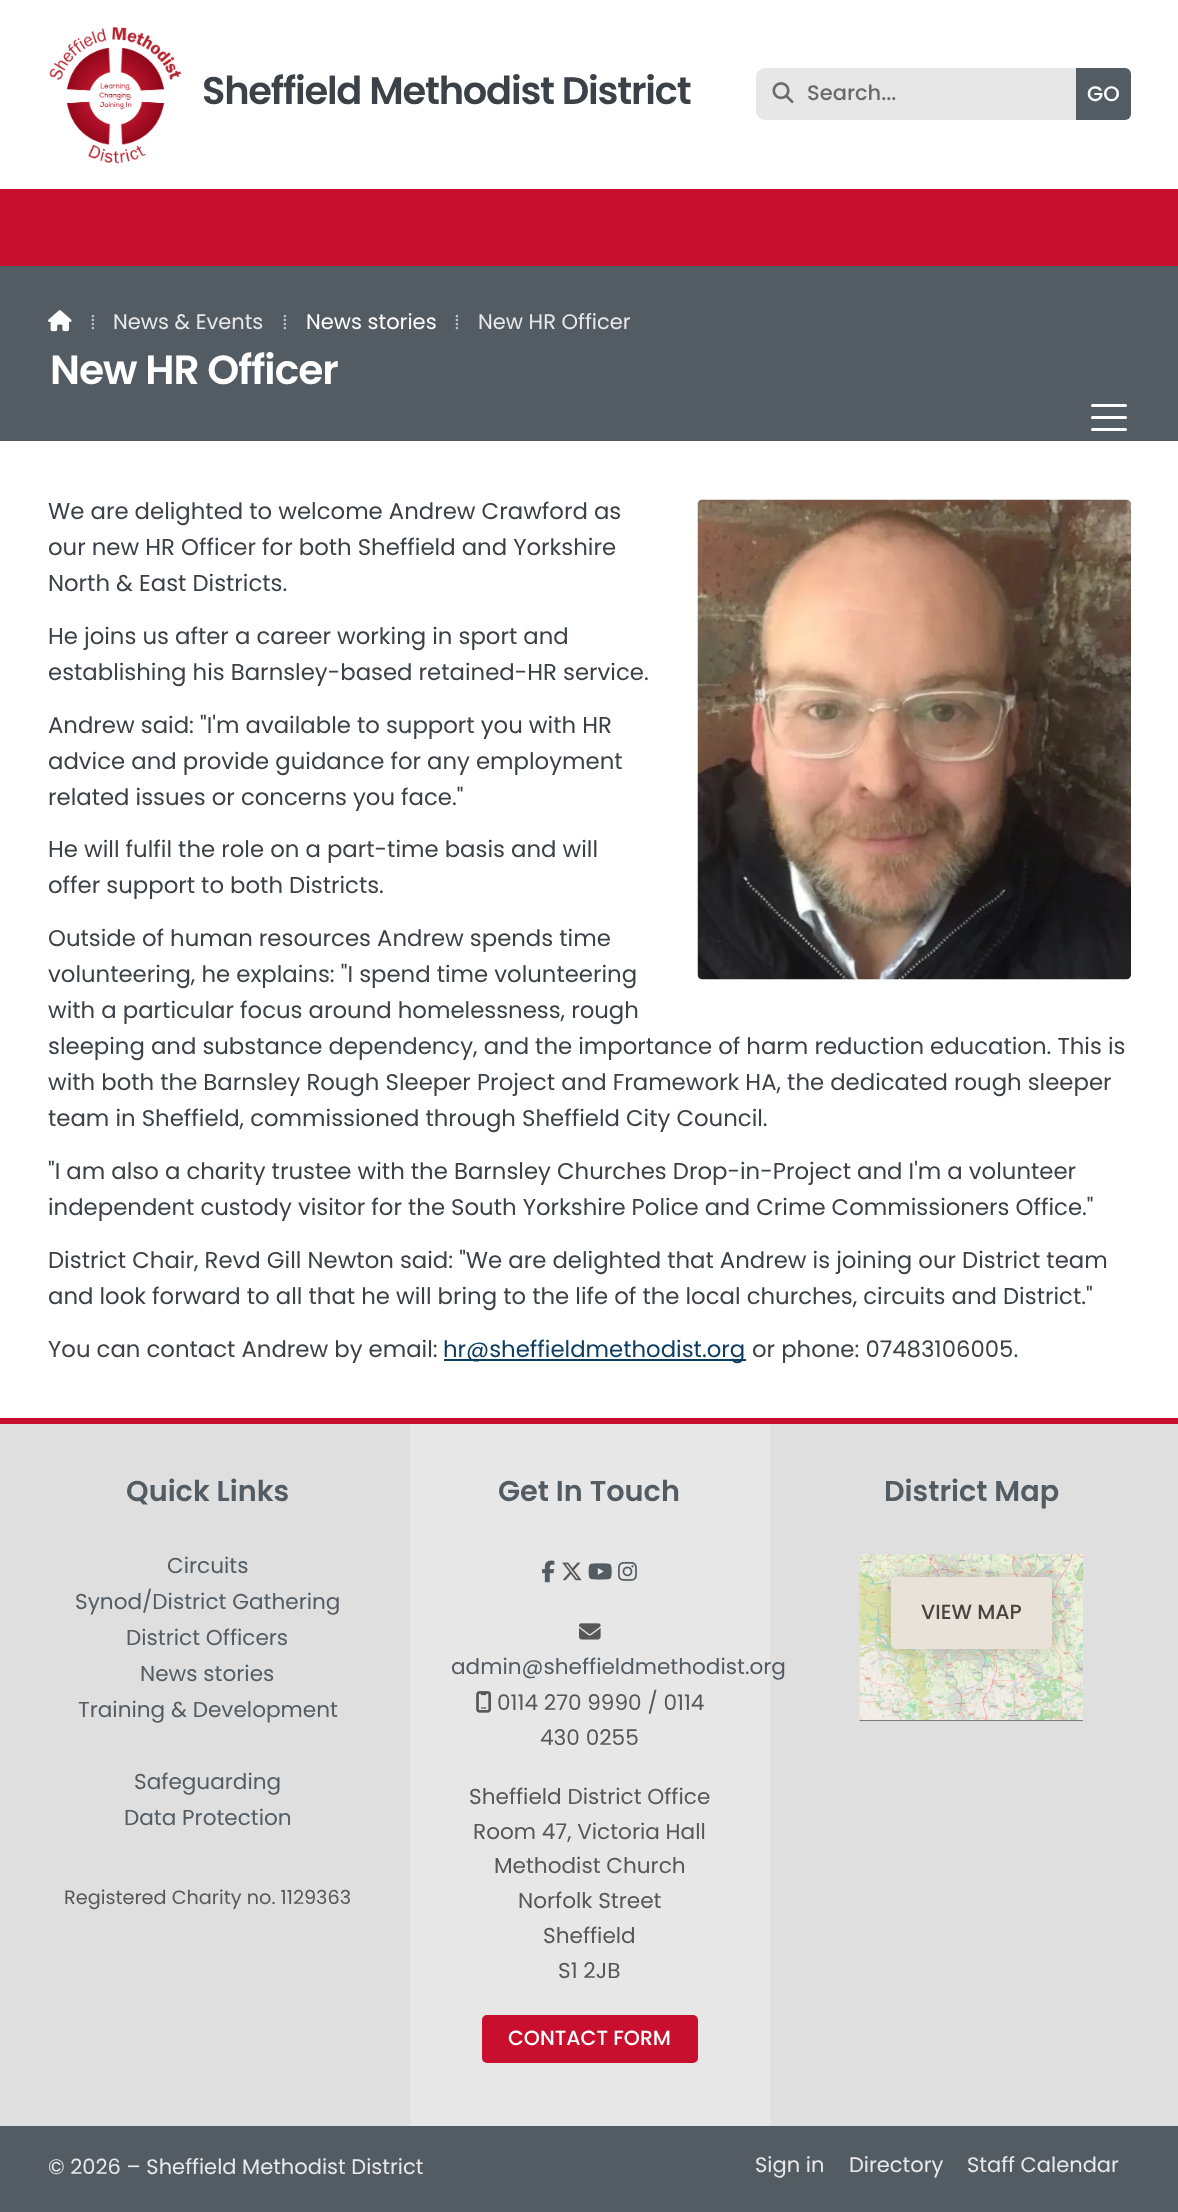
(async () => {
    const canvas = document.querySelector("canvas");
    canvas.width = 1178;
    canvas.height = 2212;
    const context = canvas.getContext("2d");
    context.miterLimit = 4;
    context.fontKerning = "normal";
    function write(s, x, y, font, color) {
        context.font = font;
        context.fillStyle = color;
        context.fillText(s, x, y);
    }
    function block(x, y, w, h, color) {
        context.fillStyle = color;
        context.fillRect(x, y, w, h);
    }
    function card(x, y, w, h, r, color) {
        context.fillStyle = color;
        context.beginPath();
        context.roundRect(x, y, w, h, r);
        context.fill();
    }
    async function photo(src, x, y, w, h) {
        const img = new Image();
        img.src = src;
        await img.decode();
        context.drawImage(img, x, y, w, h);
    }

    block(0, 0, 1178, 2212, "rgb(84, 92, 99)");
    block(0, 441, 1178, 977, "rgb(255, 255, 255)");
    block(0, 0, 1178, 189, "rgb(255, 255, 255)");
    await photo("media/1.png", 49, 27, 133, 137);
    context.letterSpacing = "-1.2px";
    write("Sheffield Methodist District", 202, 104, "600 38.4px Poppins", "rgb(59, 65, 71)");
    card(756, 68, 375, 52, 9, "rgb(231, 231, 231)");
    await photo("media/2.png", 772, 82, 22, 22);
    context.letterSpacing = "0px";
    write("Search...", 807, 100, "500 21px Poppins", "rgb(106, 106, 106)");
    context.fillStyle = "rgb(84, 92, 99)";
    context.beginPath();
    context.roundRect(1076, 68, 55, 52, [0, 6, 6, 0]);
    context.fill();
    write("GO", 1087, 101, "500 21px Poppins", "rgb(255, 255, 255)");
    block(0, 189, 1178, 77, "rgb(200, 16, 46)");
    card(1091, 404, 36, 3, 1.5, "rgb(255, 255, 255)");
    card(1091, 416, 36, 3, 1.5, "rgb(255, 255, 255)");
    card(1091, 428, 36, 3, 1.5, "rgb(255, 255, 255)");
    await photo("media/3.png", 48, 310, 24, 22);
    write("⁞", 90, 329, "21px Liberation Serif", "rgb(196, 198, 200)");
    write("News & Events", 113, 329, "21px Poppins", "rgb(233, 233, 233)");
    write("⁞", 282, 329, "21px Liberation Serif", "rgb(196, 198, 200)");
    write("News stories", 306, 329, "21px Poppins", "rgb(255, 255, 255)");
    write("⁞", 454, 329, "21px Liberation Serif", "rgb(196, 198, 200)");
    write("New HR Officer", 478, 329, "21px Poppins", "rgb(233, 233, 233)");
    context.letterSpacing = "-1px";
    write("New HR Officer", 50, 384, "600 40.75px Poppins", "rgb(255, 255, 255)");
    context.letterSpacing = "0px";
    write("We are delighted to welcome Andrew Crawford as", 48, 519, "22.8px Poppins", "rgb(59, 65, 71)");
    write("our new HR Officer for both Sheffield and Yorkshire", 48, 555, "22.8px Poppins", "rgb(59, 65, 71)");
    write("North & East Districts.", 48, 591, "22.8px Poppins", "rgb(59, 65, 71)");
    await photo("media/4.png", 697, 499, 434, 481);
    write("He joins us after a career working in sport and", 48, 644, "22.8px Poppins", "rgb(59, 65, 71)");
    write("establishing his Barnsley-based retained-HR service.", 48, 680, "22.8px Poppins", "rgb(59, 65, 71)");
    write("Andrew said: \"I'm available to support you with HR", 48, 733, "22.8px Poppins", "rgb(59, 65, 71)");
    write("advice and provide guidance for any employment", 48, 769, "22.8px Poppins", "rgb(59, 65, 71)");
    write("related issues or concerns you face.\"", 48, 805, "22.8px Poppins", "rgb(59, 65, 71)");
    write("He will fulfil the role on a part-time basis and will", 48, 857, "22.8px Poppins", "rgb(59, 65, 71)");
    write("offer support to both Districts.", 48, 893, "22.8px Poppins", "rgb(59, 65, 71)");
    write("Outside of human resources Andrew spends time", 48, 946, "22.8px Poppins", "rgb(59, 65, 71)");
    write("volunteering, he explains: \"I spend time volunteering", 48, 982, "22.8px Poppins", "rgb(59, 65, 71)");
    write("with a particular focus around homelessness, rough", 48, 1018, "22.8px Poppins", "rgb(59, 65, 71)");
    write("sleeping and substance dependency, and the importance of harm reduction education. This is", 48, 1054, "22.8px Poppins", "rgb(59, 65, 71)");
    write("with both the Barnsley Rough Sleeper Project and Framework HA, the dedicated rough sleeper", 48, 1090, "22.8px Poppins", "rgb(59, 65, 71)");
    write("team in Sheffield, commissioned through Sheffield City Council.", 48, 1126, "22.8px Poppins", "rgb(59, 65, 71)");
    write("\"I am also a charity trustee with the Barnsley Churches Drop-in-Project and I'm a volunteer", 48, 1179, "22.8px Poppins", "rgb(59, 65, 71)");
    write("independent custody visitor for the South Yorkshire Police and Crime Commissioners Office.\"", 48, 1215, "22.8px Poppins", "rgb(59, 65, 71)");
    write("District Chair, Revd Gill Newton said: \"We are delighted that Andrew is joining our District team", 48, 1268, "22.8px Poppins", "rgb(59, 65, 71)");
    write("and look forward to all that he will bring to the life of the local churches, circuits and District.\"", 48, 1304, "22.8px Poppins", "rgb(59, 65, 71)");
    write("You can contact Andrew by email:", 48, 1357, "22.8px Poppins", "rgb(59, 65, 71)");
    block(444, 1359, 302, 2, "rgb(12, 60, 96)");
    write("hr@sheffieldmethodist.org", 443, 1357, "22.8px Poppins", "rgb(12, 60, 96)");
    write("or phone: 07483106005.", 752, 1357, "22.8px Poppins", "rgb(59, 65, 71)");
    block(0, 1424, 1178, 702, "rgb(223, 223, 223)");
    block(0, 1418, 1178, 6, "rgb(200, 16, 46)");
    write("Quick Links", 126, 1501, "600 28.75px Poppins", "rgb(84, 92, 99)");
    write("Circuits", 167, 1573, "21.6px Poppins", "rgb(84, 92, 99)");
    write("Synod/District Gathering", 75, 1609, "21.6px Poppins", "rgb(84, 92, 99)");
    write("District Officers", 126, 1645, "21.6px Poppins", "rgb(84, 92, 99)");
    write("News stories", 140, 1681, "21.6px Poppins", "rgb(84, 92, 99)");
    write("Training & Development", 78, 1717, "21.6px Poppins", "rgb(84, 92, 99)");
    write("Safeguarding", 134, 1789, "21.6px Poppins", "rgb(84, 92, 99)");
    write("Data Protection", 124, 1825, "21.6px Poppins", "rgb(84, 92, 99)");
    write("Registered Charity no. 1129363", 64, 1904, "19.25px Poppins", "rgb(87, 87, 87)");
    block(410, 1424, 360, 702, "rgb(231, 231, 231)");
    write("Get In Touch", 498, 1501, "600 28.75px Poppins", "rgb(84, 92, 99)");
    await photo("media/5.png", 542, 1560, 13, 23);
    await photo("media/6.png", 562, 1562, 20, 19);
    await photo("media/7.png", 588, 1563, 24, 17);
    await photo("media/8.png", 618, 1561, 19, 20);
    await photo("media/9.png", 579, 1623, 22, 17);
    write("admin@sheffieldmethodist.org", 451, 1674, "21.6px Poppins", "rgb(84, 92, 99)");
    await photo("media/10.png", 476, 1691, 15, 22);
    write("0114 270 9990 / 0114", 497, 1710, "21.6px Poppins", "rgb(87, 87, 87)");
    write("430 0255", 540, 1745, "21.6px Poppins", "rgb(87, 87, 87)");
    write("Sheffield District Office", 469, 1804, "21.6px Poppins", "rgb(87, 87, 87)");
    write("Room 47, Victoria Hall", 473, 1839, "21.6px Poppins", "rgb(87, 87, 87)");
    write("Methodist Church", 494, 1873, "21.6px Poppins", "rgb(87, 87, 87)");
    write("Norfolk Street", 518, 1908, "21.6px Poppins", "rgb(87, 87, 87)");
    write("Sheffield", 543, 1943, "21.6px Poppins", "rgb(87, 87, 87)");
    write("S1 2JB", 558, 1978, "21.6px Poppins", "rgb(87, 87, 87)");
    card(482, 2015, 216, 48, 5, "rgb(200, 16, 46)");
    write("CONTACT FORM", 508, 2045, "500 20.5px Poppins", "rgb(255, 255, 255)");
    write("District Map", 884, 1501, "600 28.75px Poppins", "rgb(84, 92, 99)");
    await photo("media/11.png", 859, 1554, 224, 167);
    context.fillStyle = "rgba(0, 0, 0, 0.2)";
    context.filter = "blur(9px)";
    context.beginPath();
    context.roundRect(891, 1577, 161, 72, 5);
    context.fill();
    context.filter = "none";
    card(891, 1577, 161, 72, 5, "rgb(233, 226, 216)");
    write("VIEW MAP", 921, 1619, "500 20.5px Poppins", "rgb(70, 67, 65)");
    write("© 2026 – Sheffield Methodist District", 48, 2174, "21px Poppins", "rgb(233, 233, 233)");
    write("Sign in", 755, 2172, "21px Poppins", "rgb(233, 233, 233)");
    write("Directory", 849, 2172, "21px Poppins", "rgb(233, 233, 233)");
    write("Staff Calendar", 967, 2172, "21px Poppins", "rgb(233, 233, 233)");
})();
